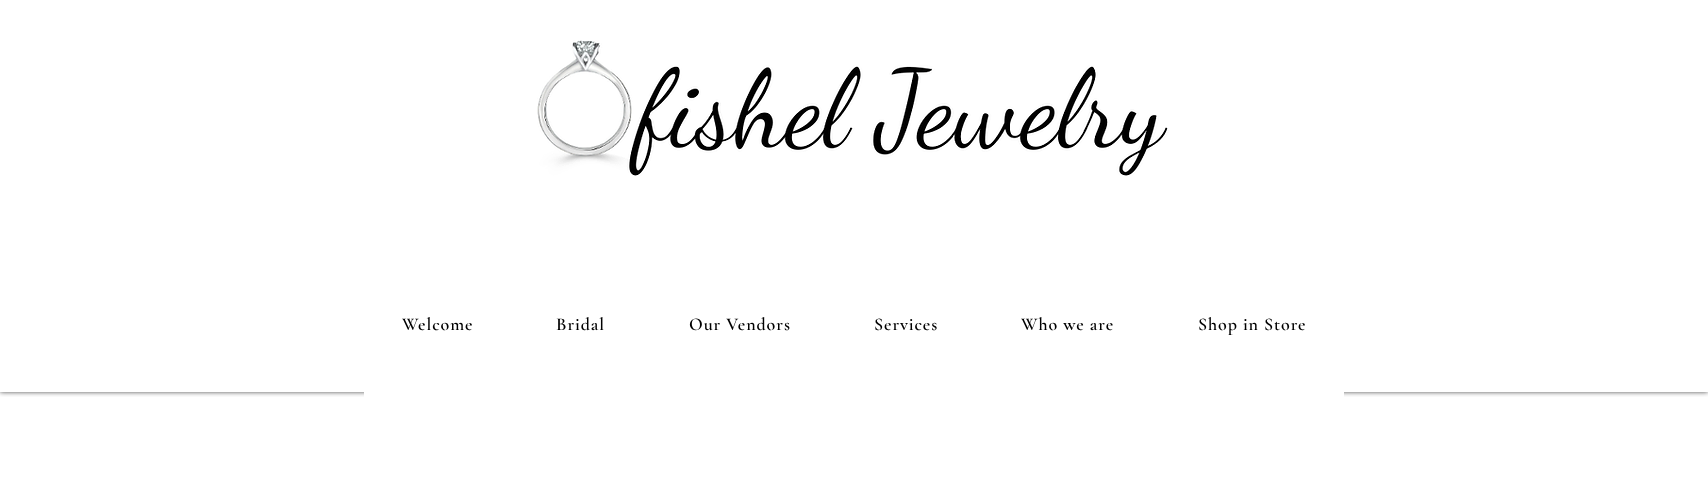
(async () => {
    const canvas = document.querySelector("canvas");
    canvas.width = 1708;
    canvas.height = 498;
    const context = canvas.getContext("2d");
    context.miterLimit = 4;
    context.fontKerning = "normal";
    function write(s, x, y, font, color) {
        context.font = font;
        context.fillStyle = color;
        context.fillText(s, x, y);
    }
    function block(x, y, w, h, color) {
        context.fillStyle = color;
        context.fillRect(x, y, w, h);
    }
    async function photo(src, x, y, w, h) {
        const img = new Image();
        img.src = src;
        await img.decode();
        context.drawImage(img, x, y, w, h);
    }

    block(0, 0, 1708, 498, "rgb(255, 255, 255)");
    context.save();
    context.beginPath();
    context.rect(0, 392, 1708, 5);
    context.clip();
    context.fillStyle = "rgba(0, 0, 0, 0.7)";
    context.filter = "blur(2.5px)";
    context.beginPath();
    context.rect(0, 0, 1708, 392);
    context.fill();
    context.filter = "none";
    context.restore();
    await photo("media/1.png", 537, 40, 632, 136);
    context.letterSpacing = "0.9px";
    write("Welcome", 402, 330, "600 18px Cormorant Garamond", "rgb(0, 0, 0)");
    write("Bridal", 556, 330, "600 18px Cormorant Garamond", "rgb(0, 0, 0)");
    write("Our Vendors", 689, 330, "600 18px Cormorant Garamond", "rgb(0, 0, 0)");
    write("Services", 874, 330, "600 18px Cormorant Garamond", "rgb(0, 0, 0)");
    write("Who we are", 1021, 330, "600 18px Cormorant Garamond", "rgb(0, 0, 0)");
    write("Shop in Store", 1198, 330, "600 18px Cormorant Garamond", "rgb(0, 0, 0)");
    block(364, 392, 980, 5, "rgb(255, 255, 255)");
})();
